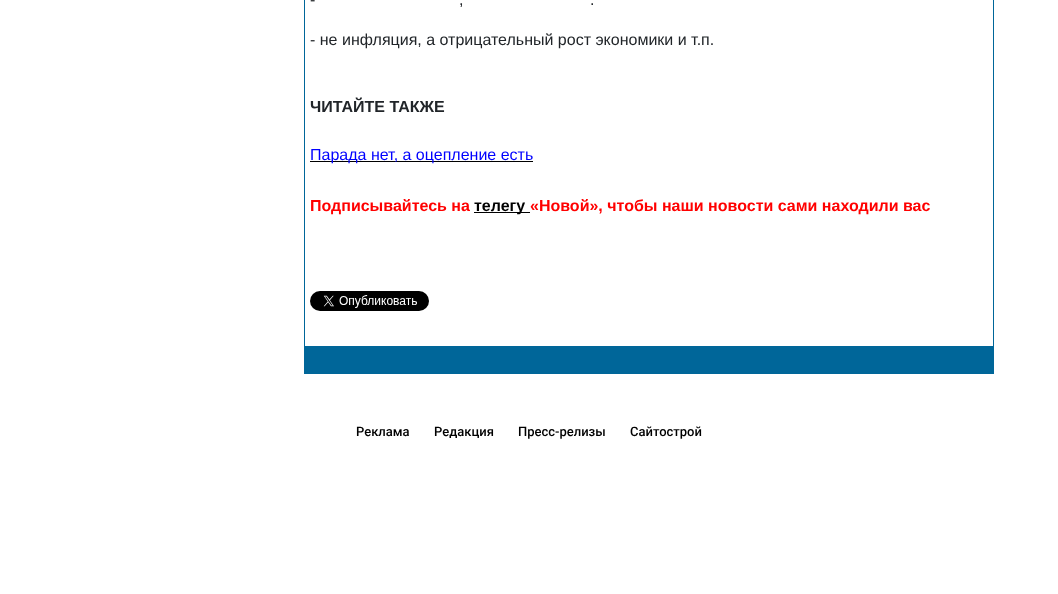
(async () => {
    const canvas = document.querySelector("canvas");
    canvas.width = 1058;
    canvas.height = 594;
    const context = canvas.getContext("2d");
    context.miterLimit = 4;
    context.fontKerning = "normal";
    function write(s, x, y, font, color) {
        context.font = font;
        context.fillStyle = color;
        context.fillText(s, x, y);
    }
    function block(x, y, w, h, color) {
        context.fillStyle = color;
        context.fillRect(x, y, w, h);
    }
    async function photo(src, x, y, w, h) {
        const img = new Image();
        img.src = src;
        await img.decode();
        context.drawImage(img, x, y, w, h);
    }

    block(0, 0, 1058, 594, "rgb(255, 255, 255)");
    block(304, 0, 690, 374, "rgb(0, 102, 153)");
    block(305, 0, 688, 346, "rgb(255, 255, 255)");
    write("-", 310, 5, "16px Liberation Sans", "rgb(33, 37, 41)");
    write(",", 459, 5, "16px Liberation Sans", "rgb(33, 37, 41)");
    write(".", 590, 5, "16px Liberation Sans", "rgb(33, 37, 41)");
    write("- не инфляция, а отрицательный рост экономики и т.п.", 310, 45, "16px Liberation Sans", "rgb(33, 37, 41)");
    write("ЧИТАЙТЕ ТАКЖЕ", 310, 112, "bold 16px Liberation Sans", "rgb(33, 37, 41)");
    block(310, 161, 223, 1, "rgb(0, 0, 0)");
    write("Парада нет, а оцепление есть", 310, 160, "16px Liberation Sans", "rgb(0, 0, 255)");
    write("Подписывайтесь на", 310, 211, "bold 16px Liberation Sans", "rgb(255, 0, 0)");
    block(474, 212, 56, 1, "rgb(0, 0, 0)");
    write("телегу", 474, 211, "bold 16px Liberation Sans", "rgb(0, 0, 0)");
    write("«Новой», чтобы наши новости сами находили вас", 530, 211, "bold 16px Liberation Sans", "rgb(255, 0, 0)");
    await photo("media/1.png", 310, 291, 119, 20);
    write("Реклама", 356, 436, "500 13px Roboto", "rgb(0, 0, 0)");
    write("Редакция", 434, 436, "500 13px Roboto", "rgb(0, 0, 0)");
    write("Пресс-релизы", 518, 436, "500 13px Roboto", "rgb(0, 0, 0)");
    write("Сайтострой", 630, 436, "500 13px Roboto", "rgb(0, 0, 0)");
})();
